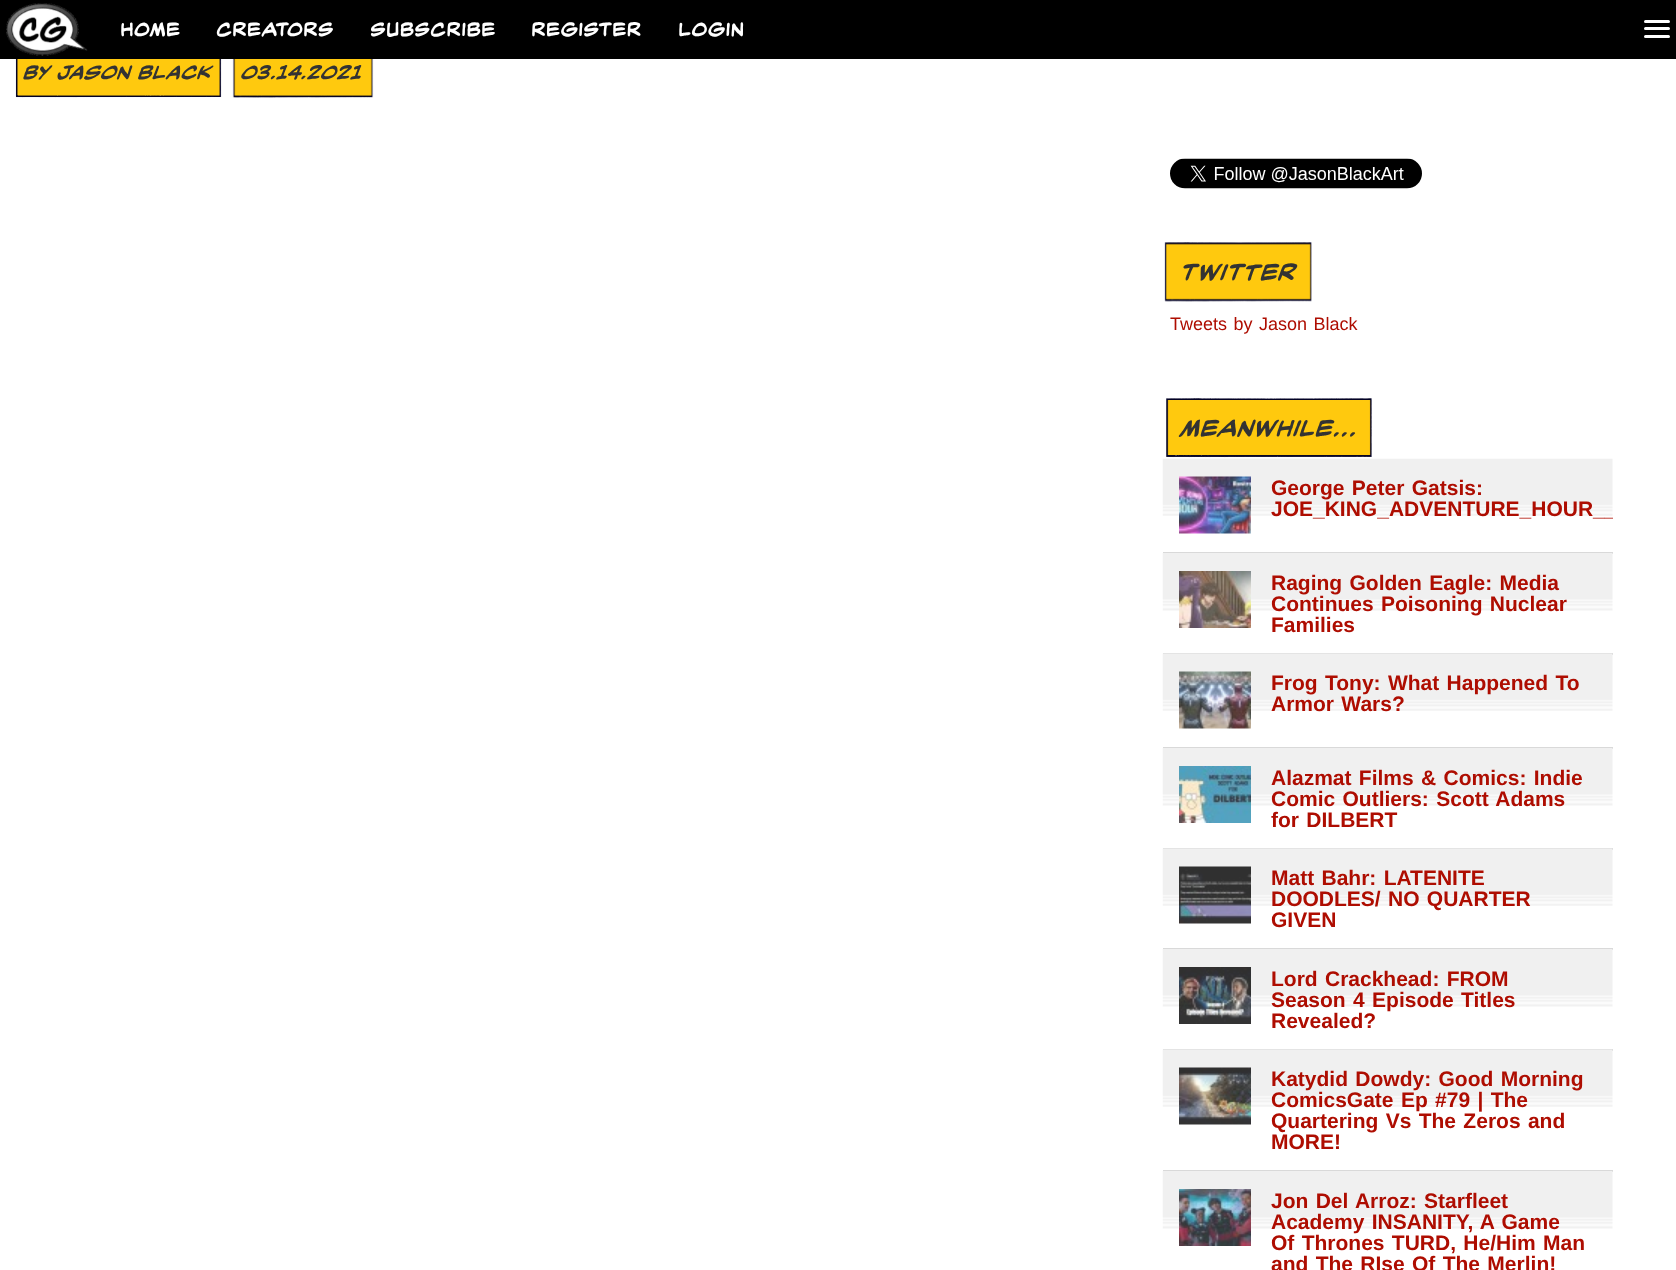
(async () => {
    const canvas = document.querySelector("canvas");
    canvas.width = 1676;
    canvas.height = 1270;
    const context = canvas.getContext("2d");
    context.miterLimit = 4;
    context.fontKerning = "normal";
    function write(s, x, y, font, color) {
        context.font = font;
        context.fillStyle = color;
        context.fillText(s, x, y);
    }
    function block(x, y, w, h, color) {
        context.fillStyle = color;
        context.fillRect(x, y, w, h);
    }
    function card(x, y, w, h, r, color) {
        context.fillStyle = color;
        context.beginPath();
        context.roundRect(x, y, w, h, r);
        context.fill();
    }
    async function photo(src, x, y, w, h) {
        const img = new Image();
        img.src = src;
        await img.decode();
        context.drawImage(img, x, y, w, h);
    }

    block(0, 0, 1676, 1270, "rgb(255, 255, 255)");
    block(0, 0, 1676, 59, "rgb(0, 0, 0)");
    await photo("media/1.png", 6, 3, 82, 53);
    write("HOME", 120, 35, "bold 21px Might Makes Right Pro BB", "rgb(255, 255, 255)");
    write("CREATORS", 216, 35, "bold 21px Might Makes Right Pro BB", "rgb(255, 255, 255)");
    write("SUBSCRIBE", 370, 35, "bold 21px Might Makes Right Pro BB", "rgb(255, 255, 255)");
    write("REGISTER", 531, 35, "bold 21px Might Makes Right Pro BB", "rgb(255, 255, 255)");
    write("LOGIN", 678, 35, "bold 21px Might Makes Right Pro BB", "rgb(255, 255, 255)");
    card(1644, 27, 26, 3, 1.5, "rgb(255, 255, 255)");
    card(1644, 20, 26, 3, 1.5, "rgb(255, 255, 255)");
    card(1644, 35, 26, 3, 1.5, "rgb(255, 255, 255)");
    await photo("media/2.png", 15, 59, 207, 39);
    write("By Jason Black", 24, 78, "italic bold 21px Might Makes Right Pro BB", "rgb(51, 51, 51)");
    await photo("media/3.png", 232, 59, 142, 39);
    write("03.14.2021", 242, 78, "italic bold 21px Might Makes Right Pro BB", "rgb(51, 51, 51)");
    await photo("media/4.png", 1170, 158, 252, 31);
    await photo("media/5.png", 1164, 242, 148, 60);
    write("TWITTER", 1181, 279, "italic bold 25.5px Might Makes Right Pro BB", "rgb(51, 51, 51)");
    context.wordSpacing = "1.5px";
    write("Tweets by Jason Black", 1170, 330, "18px Liberation Sans", "rgb(174, 13, 1)");
    await photo("media/6.png", 1166, 398, 206, 60);
    context.wordSpacing = "0px";
    write("MEANWHILE...", 1181, 435, "italic bold 25.5px Might Makes Right Pro BB", "rgb(51, 51, 51)");
    await photo("media/7.png", 1162, 458, 451, 58);
    block(1163, 552, 450, 2, "rgb(217, 217, 217)");
    await photo("media/8.png", 1179, 476, 72, 58);
    context.wordSpacing = "1.5px";
    write("George Peter Gatsis:", 1271, 495, "bold 21px Liberation Sans", "rgb(174, 13, 1)");
    context.save();
    context.beginPath();
    context.rect(1163, 459, 450, 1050);
    context.clip();
    context.wordSpacing = "0px";
    write("JOE_KING_ADVENTURE_HOUR__", 1271, 516, "bold 21px Liberation Sans", "rgb(174, 13, 1)");
    context.restore();
    await photo("media/9.png", 1162, 553, 451, 58);
    block(1163, 653, 450, 2, "rgb(217, 217, 217)");
    await photo("media/10.png", 1179, 571, 72, 57);
    write("Raging Golden Eagle: Media", 1271, 590, "bold 21px Liberation Sans", "rgb(174, 13, 1)");
    write("Continues Poisoning Nuclear", 1271, 611, "bold 21px Liberation Sans", "rgb(174, 13, 1)");
    context.wordSpacing = "0px";
    write("Families", 1271, 632, "bold 21px Liberation Sans", "rgb(174, 13, 1)");
    await photo("media/11.png", 1162, 653, 451, 58);
    block(1163, 747, 450, 2, "rgb(217, 217, 217)");
    await photo("media/12.png", 1179, 671, 72, 58);
    context.wordSpacing = "1.5px";
    write("Frog Tony: What Happened To", 1271, 690, "bold 21px Liberation Sans", "rgb(174, 13, 1)");
    write("Armor Wars?", 1271, 711, "bold 21px Liberation Sans", "rgb(174, 13, 1)");
    await photo("media/9.png", 1162, 748, 451, 58);
    block(1163, 848, 450, 2, "rgb(217, 217, 217)");
    await photo("media/13.png", 1179, 766, 72, 57);
    write("Alazmat Films & Comics: Indie", 1271, 785, "bold 21px Liberation Sans", "rgb(174, 13, 1)");
    write("Comic Outliers: Scott Adams", 1271, 806, "bold 21px Liberation Sans", "rgb(174, 13, 1)");
    write("for DILBERT", 1271, 827, "bold 21px Liberation Sans", "rgb(174, 13, 1)");
    await photo("media/11.png", 1162, 848, 451, 58);
    block(1163, 948, 450, 2, "rgb(217, 217, 217)");
    await photo("media/14.png", 1179, 866, 72, 58);
    write("Matt Bahr: LATENITE", 1271, 885, "bold 21px Liberation Sans", "rgb(174, 13, 1)");
    write("DOODLES/ NO QUARTER", 1271, 906, "bold 21px Liberation Sans", "rgb(174, 13, 1)");
    context.wordSpacing = "0px";
    write("GIVEN", 1271, 927, "bold 21px Liberation Sans", "rgb(174, 13, 1)");
    await photo("media/9.png", 1162, 949, 451, 58);
    block(1163, 1049, 450, 2, "rgb(217, 217, 217)");
    await photo("media/15.png", 1179, 967, 72, 57);
    context.wordSpacing = "1.5px";
    write("Lord Crackhead: FROM", 1271, 986, "bold 21px Liberation Sans", "rgb(174, 13, 1)");
    write("Season 4 Episode Titles", 1271, 1007, "bold 21px Liberation Sans", "rgb(174, 13, 1)");
    context.wordSpacing = "0px";
    write("Revealed?", 1271, 1028, "bold 21px Liberation Sans", "rgb(174, 13, 1)");
    await photo("media/11.png", 1162, 1049, 451, 58);
    block(1163, 1170, 450, 2, "rgb(217, 217, 217)");
    await photo("media/16.png", 1179, 1067, 72, 58);
    context.wordSpacing = "1.5px";
    write("Katydid Dowdy: Good Morning", 1271, 1086, "bold 21px Liberation Sans", "rgb(174, 13, 1)");
    write("ComicsGate Ep #79 | The", 1271, 1107, "bold 21px Liberation Sans", "rgb(174, 13, 1)");
    write("Quartering Vs The Zeros and", 1271, 1128, "bold 21px Liberation Sans", "rgb(174, 13, 1)");
    context.wordSpacing = "0px";
    write("MORE!", 1271, 1149, "bold 21px Liberation Sans", "rgb(174, 13, 1)");
    await photo("media/9.png", 1162, 1171, 451, 58);
    await photo("media/17.png", 1179, 1189, 72, 57);
    context.wordSpacing = "1.5px";
    write("Jon Del Arroz: Starfleet", 1271, 1208, "bold 21px Liberation Sans", "rgb(174, 13, 1)");
    write("Academy INSANITY, A Game", 1271, 1229, "bold 21px Liberation Sans", "rgb(174, 13, 1)");
    write("Of Thrones TURD, He/Him Man", 1271, 1250, "bold 21px Liberation Sans", "rgb(174, 13, 1)");
    write("and The RIse Of The Merlin!", 1271, 1271, "bold 21px Liberation Sans", "rgb(174, 13, 1)");
})();
